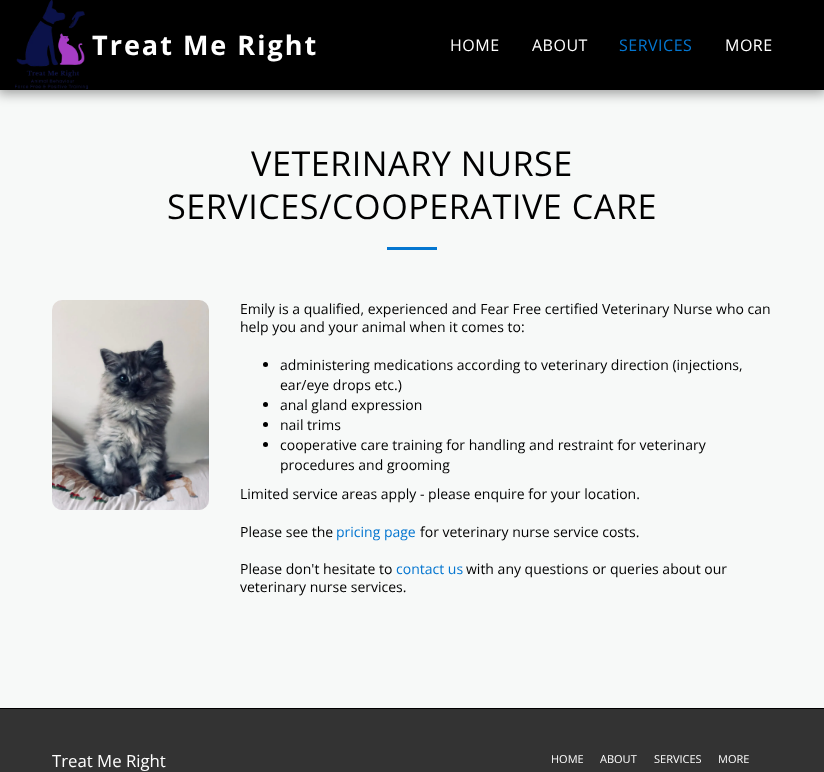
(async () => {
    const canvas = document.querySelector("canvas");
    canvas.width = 824;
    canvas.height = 772;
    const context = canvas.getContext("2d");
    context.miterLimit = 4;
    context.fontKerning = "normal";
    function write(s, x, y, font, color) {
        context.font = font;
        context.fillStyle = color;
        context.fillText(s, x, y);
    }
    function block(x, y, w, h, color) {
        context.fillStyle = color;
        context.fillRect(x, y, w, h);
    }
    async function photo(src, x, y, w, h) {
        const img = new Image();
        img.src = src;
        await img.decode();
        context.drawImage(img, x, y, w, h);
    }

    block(0, 0, 824, 772, "rgb(247, 249, 248)");
    context.fillStyle = "rgba(0, 0, 0, 0.35)";
    context.filter = "blur(6px)";
    context.beginPath();
    context.rect(-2, 0, 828, 94);
    context.fill();
    context.filter = "none";
    block(0, 0, 824, 90, "rgb(0, 0, 0)");
    await photo("media/1.png", 15, 0, 73, 89);
    context.letterSpacing = "2px";
    write("Treat Me Right", 92, 55, "bold 27px Open Sans", "rgb(255, 255, 255)");
    context.letterSpacing = "0.5px";
    write("HOME", 450, 51, "16px Open Sans", "rgb(255, 255, 255)");
    write("ABOUT", 532, 51, "16px Open Sans", "rgb(255, 255, 255)");
    write("SERVICES", 619, 51, "16px Open Sans", "rgb(4, 118, 208)");
    write("MORE", 725, 51, "16px Open Sans", "rgb(255, 255, 255)");
    write("VETERINARY NURSE", 251, 176, "34.2px Open Sans", "rgb(0, 0, 0)");
    write("SERVICES/COOPERATIVE CARE", 167, 219, "34.2px Open Sans", "rgb(0, 0, 0)");
    block(387, 247, 50, 3, "rgb(4, 118, 208)");
    await photo("media/2.png", 52, 300, 157, 210);
    context.letterSpacing = "0px";
    write("Emily is a qualified, experienced and Fear Free certified Veterinary Nurse who can", 240, 314, "14px Open Sans", "rgb(0, 0, 0)");
    write("help you and your animal when it comes to:", 240, 332, "14px Open Sans", "rgb(0, 0, 0)");
    context.beginPath();
    context.arc(265.5, 364.5, 2.5, 0, Math.PI * 2);
    context.fill();
    write("administering medications according to veterinary direction (injections,", 280, 370, "14px Open Sans", "rgb(0, 0, 0)");
    write("ear/eye drops etc.)", 280, 390, "14px Open Sans", "rgb(0, 0, 0)");
    context.beginPath();
    context.arc(265.5, 404.5, 2.5, 0, Math.PI * 2);
    context.fill();
    write("anal gland expression", 280, 410, "14px Open Sans", "rgb(0, 0, 0)");
    context.beginPath();
    context.arc(265.5, 424.5, 2.5, 0, Math.PI * 2);
    context.fill();
    write("nail trims", 280, 430, "14px Open Sans", "rgb(0, 0, 0)");
    context.beginPath();
    context.arc(265.5, 444.5, 2.5, 0, Math.PI * 2);
    context.fill();
    write("cooperative care training for handling and restraint for veterinary", 280, 450, "14px Open Sans", "rgb(0, 0, 0)");
    write("procedures and grooming", 280, 470, "14px Open Sans", "rgb(0, 0, 0)");
    write("Limited service areas apply - please enquire for your location.", 240, 499, "14px Open Sans", "rgb(0, 0, 0)");
    write("Please see the", 240, 537, "14px Open Sans", "rgb(0, 0, 0)");
    write("pricing page", 336, 537, "14px Open Sans", "rgb(4, 118, 208)");
    write("for veterinary nurse service costs.", 420, 537, "14px Open Sans", "rgb(0, 0, 0)");
    write("Please don't hesitate to", 240, 574, "14px Open Sans", "rgb(0, 0, 0)");
    write("contact us", 396, 574, "14px Open Sans", "rgb(4, 118, 208)");
    write("with any questions or queries about our", 466, 574, "14px Open Sans", "rgb(0, 0, 0)");
    write("veterinary nurse services.", 240, 592, "14px Open Sans", "rgb(0, 0, 0)");
    block(0, 709, 824, 63, "rgb(51, 51, 51)");
    block(0, 708, 824, 1, "rgb(0, 0, 0)");
    write("Treat Me Right", 52, 767, "16.75px Open Sans", "rgb(255, 255, 255)");
    write("HOME", 551, 763, "11px Open Sans", "rgb(255, 255, 255)");
    write("ABOUT", 600, 763, "11px Open Sans", "rgb(255, 255, 255)");
    write("SERVICES", 654, 763, "11px Open Sans", "rgb(255, 255, 255)");
    write("MORE", 718, 763, "11px Open Sans", "rgb(255, 255, 255)");
})();
